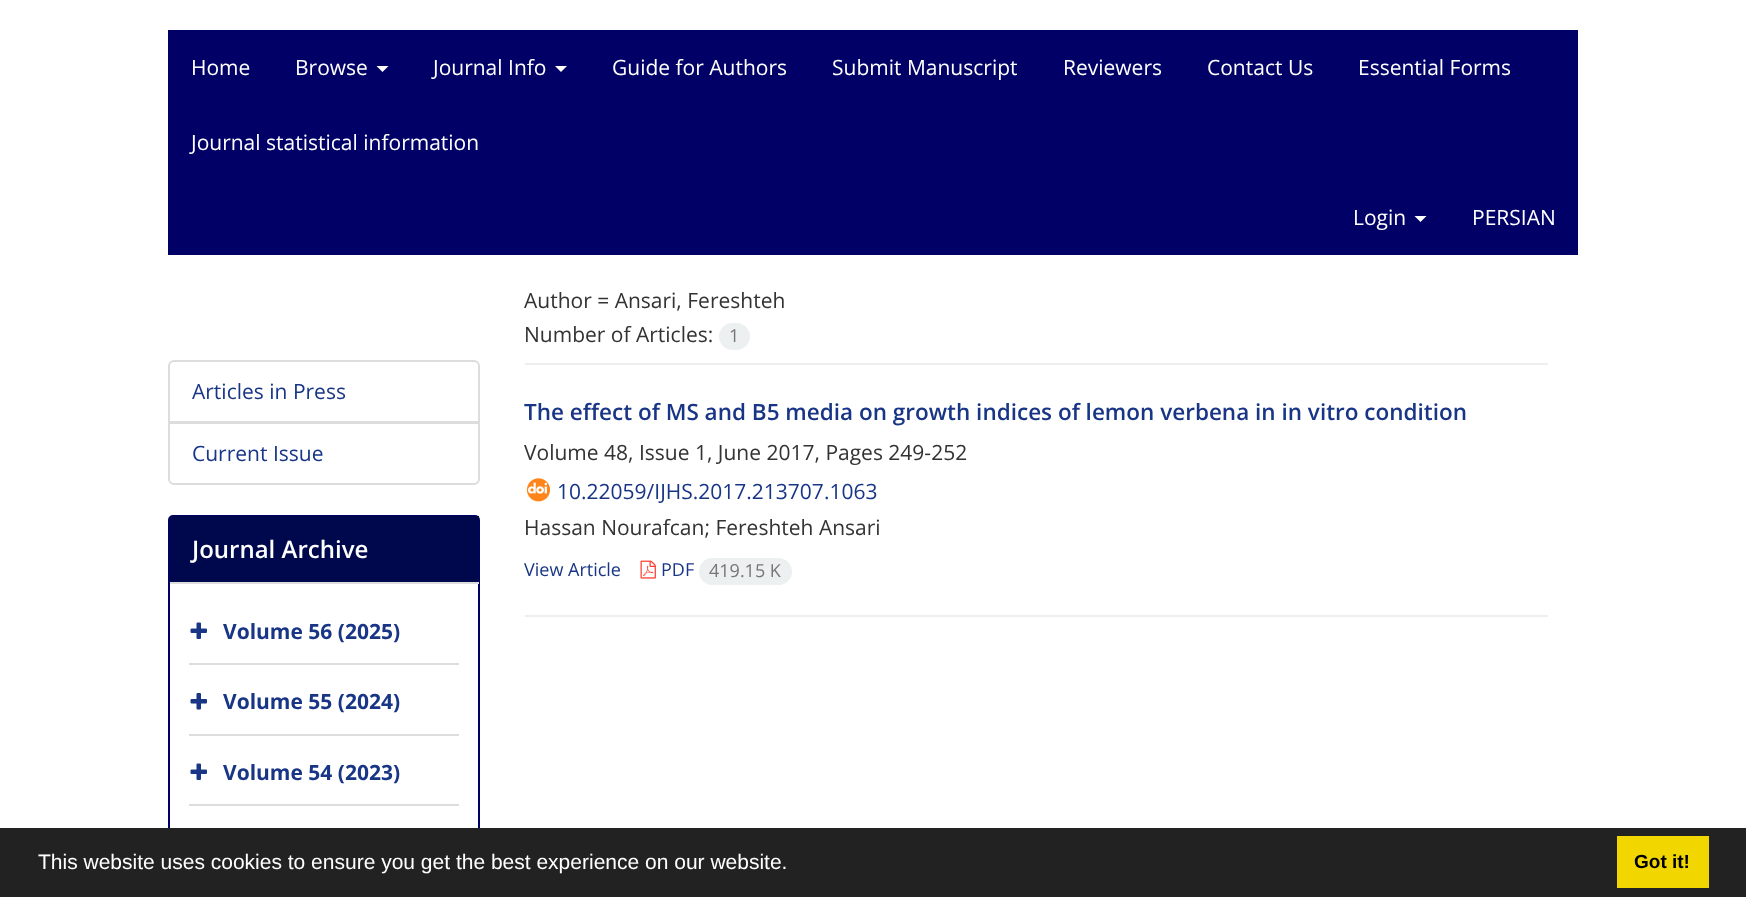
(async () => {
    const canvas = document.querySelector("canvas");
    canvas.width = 1746;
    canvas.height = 897;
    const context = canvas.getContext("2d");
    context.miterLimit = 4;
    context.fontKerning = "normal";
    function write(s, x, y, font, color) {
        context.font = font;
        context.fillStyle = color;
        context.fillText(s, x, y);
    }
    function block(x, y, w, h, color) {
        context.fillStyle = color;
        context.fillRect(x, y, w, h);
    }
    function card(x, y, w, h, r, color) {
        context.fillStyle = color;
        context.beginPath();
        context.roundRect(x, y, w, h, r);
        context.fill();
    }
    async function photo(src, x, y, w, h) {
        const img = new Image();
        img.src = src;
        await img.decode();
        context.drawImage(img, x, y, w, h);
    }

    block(0, 0, 1746, 897, "rgb(255, 255, 255)");
    block(168, 30, 1410, 225, "rgb(0, 0, 102)");
    write("Home", 191, 75, "21px Open Sans", "rgb(255, 255, 255)");
    write("Browse", 295, 75, "21px Open Sans", "rgb(255, 255, 255)");
    context.beginPath();
    context.moveTo(376.5, 66);
    context.lineTo(388.5, 66);
    context.lineTo(382.5, 72);
    context.closePath();
    context.fill();
    write("Journal Info", 433, 75, "21px Open Sans", "rgb(255, 255, 255)");
    context.beginPath();
    context.moveTo(555, 66);
    context.lineTo(567, 66);
    context.lineTo(561, 72);
    context.closePath();
    context.fill();
    write("Guide for Authors", 612, 75, "21px Open Sans", "rgb(255, 255, 255)");
    write("Submit Manuscript", 832, 75, "21px Open Sans", "rgb(255, 255, 255)");
    write("Reviewers", 1063, 75, "21px Open Sans", "rgb(255, 255, 255)");
    write("Contact Us", 1207, 75, "21px Open Sans", "rgb(255, 255, 255)");
    write("Essential Forms", 1358, 75, "21px Open Sans", "rgb(255, 255, 255)");
    write("Journal statistical information", 191, 150, "21px Open Sans", "rgb(255, 255, 255)");
    write("Login", 1353, 225, "21px Open Sans", "rgb(255, 255, 255)");
    context.beginPath();
    context.moveTo(1414.5, 216);
    context.lineTo(1426.5, 216);
    context.lineTo(1420.5, 222);
    context.closePath();
    context.fill();
    write("PERSIAN", 1472, 225, "21px Open Sans", "rgb(255, 255, 255)");
    context.beginPath();
    context.roundRect(169, 361, 310, 61, [5, 5, 0, 0]);
    context.strokeStyle = "rgb(221, 221, 221)";
    context.lineWidth = 2;
    context.stroke();
    write("Articles in Press", 192, 399, "21px Open Sans", "rgb(24, 53, 134)");
    context.fillStyle = "rgb(255, 255, 255)";
    context.beginPath();
    context.roundRect(169, 423, 310, 61, [0, 0, 5, 5]);
    context.fill();
    context.stroke();
    write("Current Issue", 192, 461, "21px Open Sans", "rgb(24, 53, 134)");
    context.beginPath();
    context.roundRect(169, 516, 310, 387, 4);
    context.strokeStyle = "rgb(0, 0, 102)";
    context.stroke();
    block(170, 516, 309, 66, "rgb(0, 8, 77)");
    block(170, 582, 309, 2, "rgb(221, 221, 221)");
    write("Journal Archive", 192, 558, "600 24px Open Sans", "rgb(255, 255, 255)");
    block(189, 663, 270, 2, "rgb(221, 221, 221)");
    await photo("media/1.png", 190, 622, 17, 17);
    write("Volume 56 (2025)", 223, 639, "bold 21px Open Sans", "rgb(24, 53, 134)");
    block(189, 734, 270, 2, "rgb(221, 221, 221)");
    await photo("media/2.png", 190, 693, 17, 17);
    write("Volume 55 (2024)", 223, 709, "bold 21px Open Sans", "rgb(24, 53, 134)");
    block(189, 804, 270, 2, "rgb(221, 221, 221)");
    await photo("media/1.png", 190, 763, 17, 17);
    write("Volume 54 (2023)", 223, 780, "bold 21px Open Sans", "rgb(24, 53, 134)");
    write("Author = Ansari, Fereshteh", 524, 308, "21px Open Sans", "rgb(51, 51, 51)");
    block(525, 363, 1023, 2, "rgb(238, 238, 238)");
    write("Number of Articles:", 524, 342, "21px Open Sans", "rgb(51, 51, 51)");
    card(719, 323, 31, 27, 13.5, "rgb(236, 240, 241)");
    write("1", 729, 342, "18px Open Sans", "rgb(119, 119, 119)");
    write("The effect of MS and B5 media on growth indices of lemon verbena in in vitro condition", 524, 420, "600 22.5px Open Sans", "rgb(24, 53, 134)");
    write("Volume 48, Issue 1, June 2017, Pages 249-252", 524, 460, "21px Open Sans", "rgb(51, 51, 51)");
    await photo("media/3.png", 526, 478, 25, 24);
    write("10.22059/IJHS.2017.213707.1063", 557, 499, "21px Open Sans", "rgb(24, 53, 134)");
    write("Hassan Nourafcan; Fereshteh Ansari", 524, 535, "21px Open Sans", "rgb(51, 51, 51)");
    write("View Article", 524, 576, "18px Open Sans", "rgb(24, 53, 134)");
    await photo("media/4.png", 640, 560, 16, 19);
    write("PDF", 661, 576, "18px Open Sans", "rgb(24, 53, 134)");
    card(699, 558, 93, 27, 13.5, "rgb(236, 240, 241)");
    write("419.15 K", 709, 577, "18px Open Sans", "rgb(119, 119, 119)");
    block(525, 615, 1023, 2, "rgb(238, 238, 238)");
    block(0, 828, 1746, 69, "rgb(34, 34, 34)");
    write("This website uses cookies to ensure you get the best experience on our website.", 38, 869, "21px Liberation Sans", "rgb(255, 255, 255)");
    block(1617, 836, 92, 52, "rgb(241, 214, 0)");
    write("Got it!", 1634, 868, "bold 19px Liberation Sans", "rgb(0, 0, 0)");
})();
